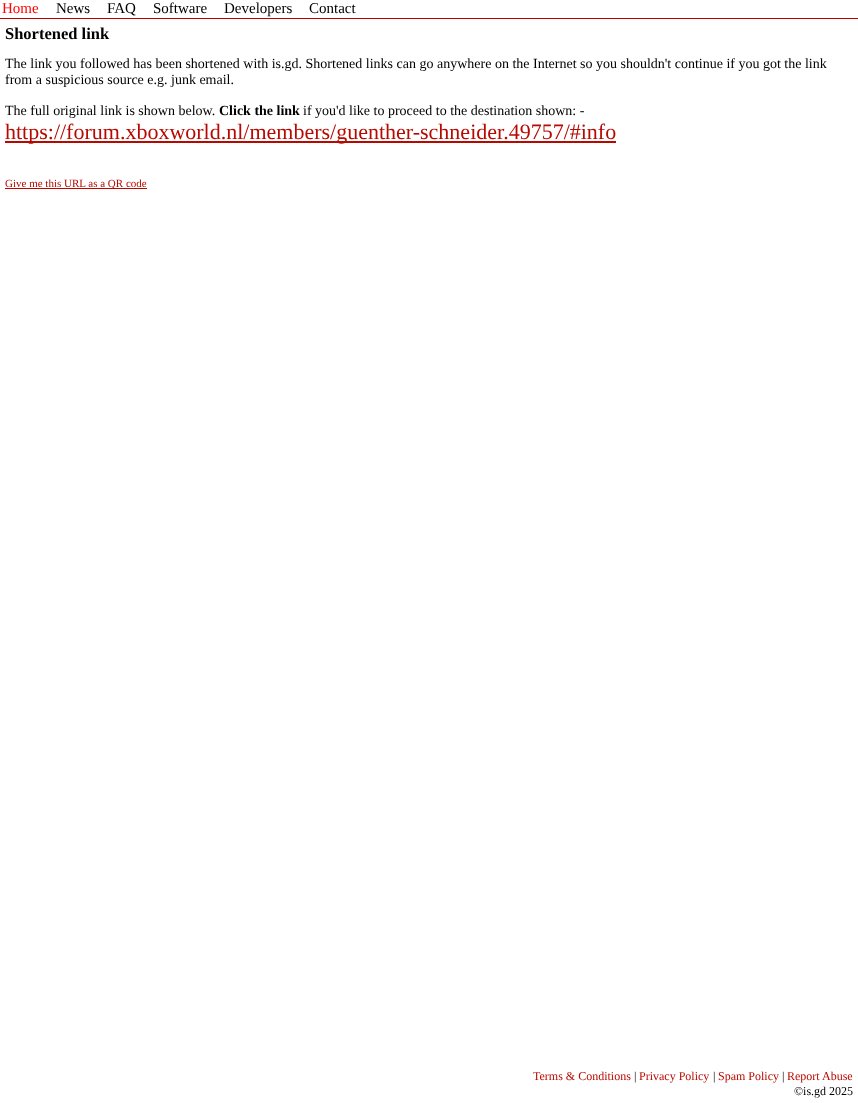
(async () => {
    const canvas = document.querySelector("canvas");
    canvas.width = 858;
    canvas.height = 1103;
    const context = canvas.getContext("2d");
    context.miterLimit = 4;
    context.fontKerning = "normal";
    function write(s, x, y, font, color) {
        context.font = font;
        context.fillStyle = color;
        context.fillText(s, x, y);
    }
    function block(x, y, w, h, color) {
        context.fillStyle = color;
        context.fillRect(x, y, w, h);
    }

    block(0, 0, 858, 1103, "rgb(255, 255, 255)");
    block(0, 18, 858, 1, "rgb(187, 0, 0)");
    write("Home", 2, 13, "15px Liberation Serif", "rgb(255, 0, 0)");
    write("News", 56, 13, "15px Liberation Serif", "rgb(0, 0, 0)");
    write("FAQ", 107, 13, "15px Liberation Serif", "rgb(0, 0, 0)");
    write("Software", 153, 13, "15px Liberation Serif", "rgb(0, 0, 0)");
    write("Developers", 224, 13, "15px Liberation Serif", "rgb(0, 0, 0)");
    write("Contact", 309, 13, "15px Liberation Serif", "rgb(0, 0, 0)");
    write("Shortened link", 5, 39, "bold 16.5px Liberation Serif", "rgb(0, 0, 0)");
    write("The link you followed has been shortened with is.gd. Shortened links can go anywhere on the Internet so you shouldn't continue if you got the link", 5, 68, "14px Liberation Serif", "rgb(0, 0, 0)");
    write("from a suspicious source e.g. junk email.", 5, 84, "14px Liberation Serif", "rgb(0, 0, 0)");
    write("The full original link is shown below.", 5, 115, "14px Liberation Serif", "rgb(0, 0, 0)");
    write("Click the link", 219, 115, "bold 14px Liberation Serif", "rgb(0, 0, 0)");
    write("if you'd like to proceed to the destination shown: -", 303, 115, "14px Liberation Serif", "rgb(0, 0, 0)");
    block(5, 141, 611, 2, "rgb(183, 9, 0)");
    write("https://forum.xboxworld.nl/members/guenther-schneider.49757/#info", 5, 139, "22px Liberation Serif", "rgb(183, 9, 0)");
    block(5, 188, 142, 1, "rgb(183, 9, 0)");
    write("Give me this URL as a QR code", 5, 187, "11px Liberation Serif", "rgb(183, 9, 0)");
    write("Terms & Conditions", 533, 1080, "12px Liberation Serif", "rgb(183, 9, 0)");
    write("|", 634, 1080, "12px Liberation Serif", "rgb(0, 0, 0)");
    write("Privacy Policy", 639, 1080, "12px Liberation Serif", "rgb(183, 9, 0)");
    write("|", 713, 1080, "12px Liberation Serif", "rgb(0, 0, 0)");
    write("Spam Policy", 718, 1080, "12px Liberation Serif", "rgb(183, 9, 0)");
    write("|", 782, 1080, "12px Liberation Serif", "rgb(0, 0, 0)");
    write("Report Abuse", 787, 1080, "12px Liberation Serif", "rgb(183, 9, 0)");
    write("©is.gd 2025", 794, 1095, "12px Liberation Serif", "rgb(0, 0, 0)");
})();
